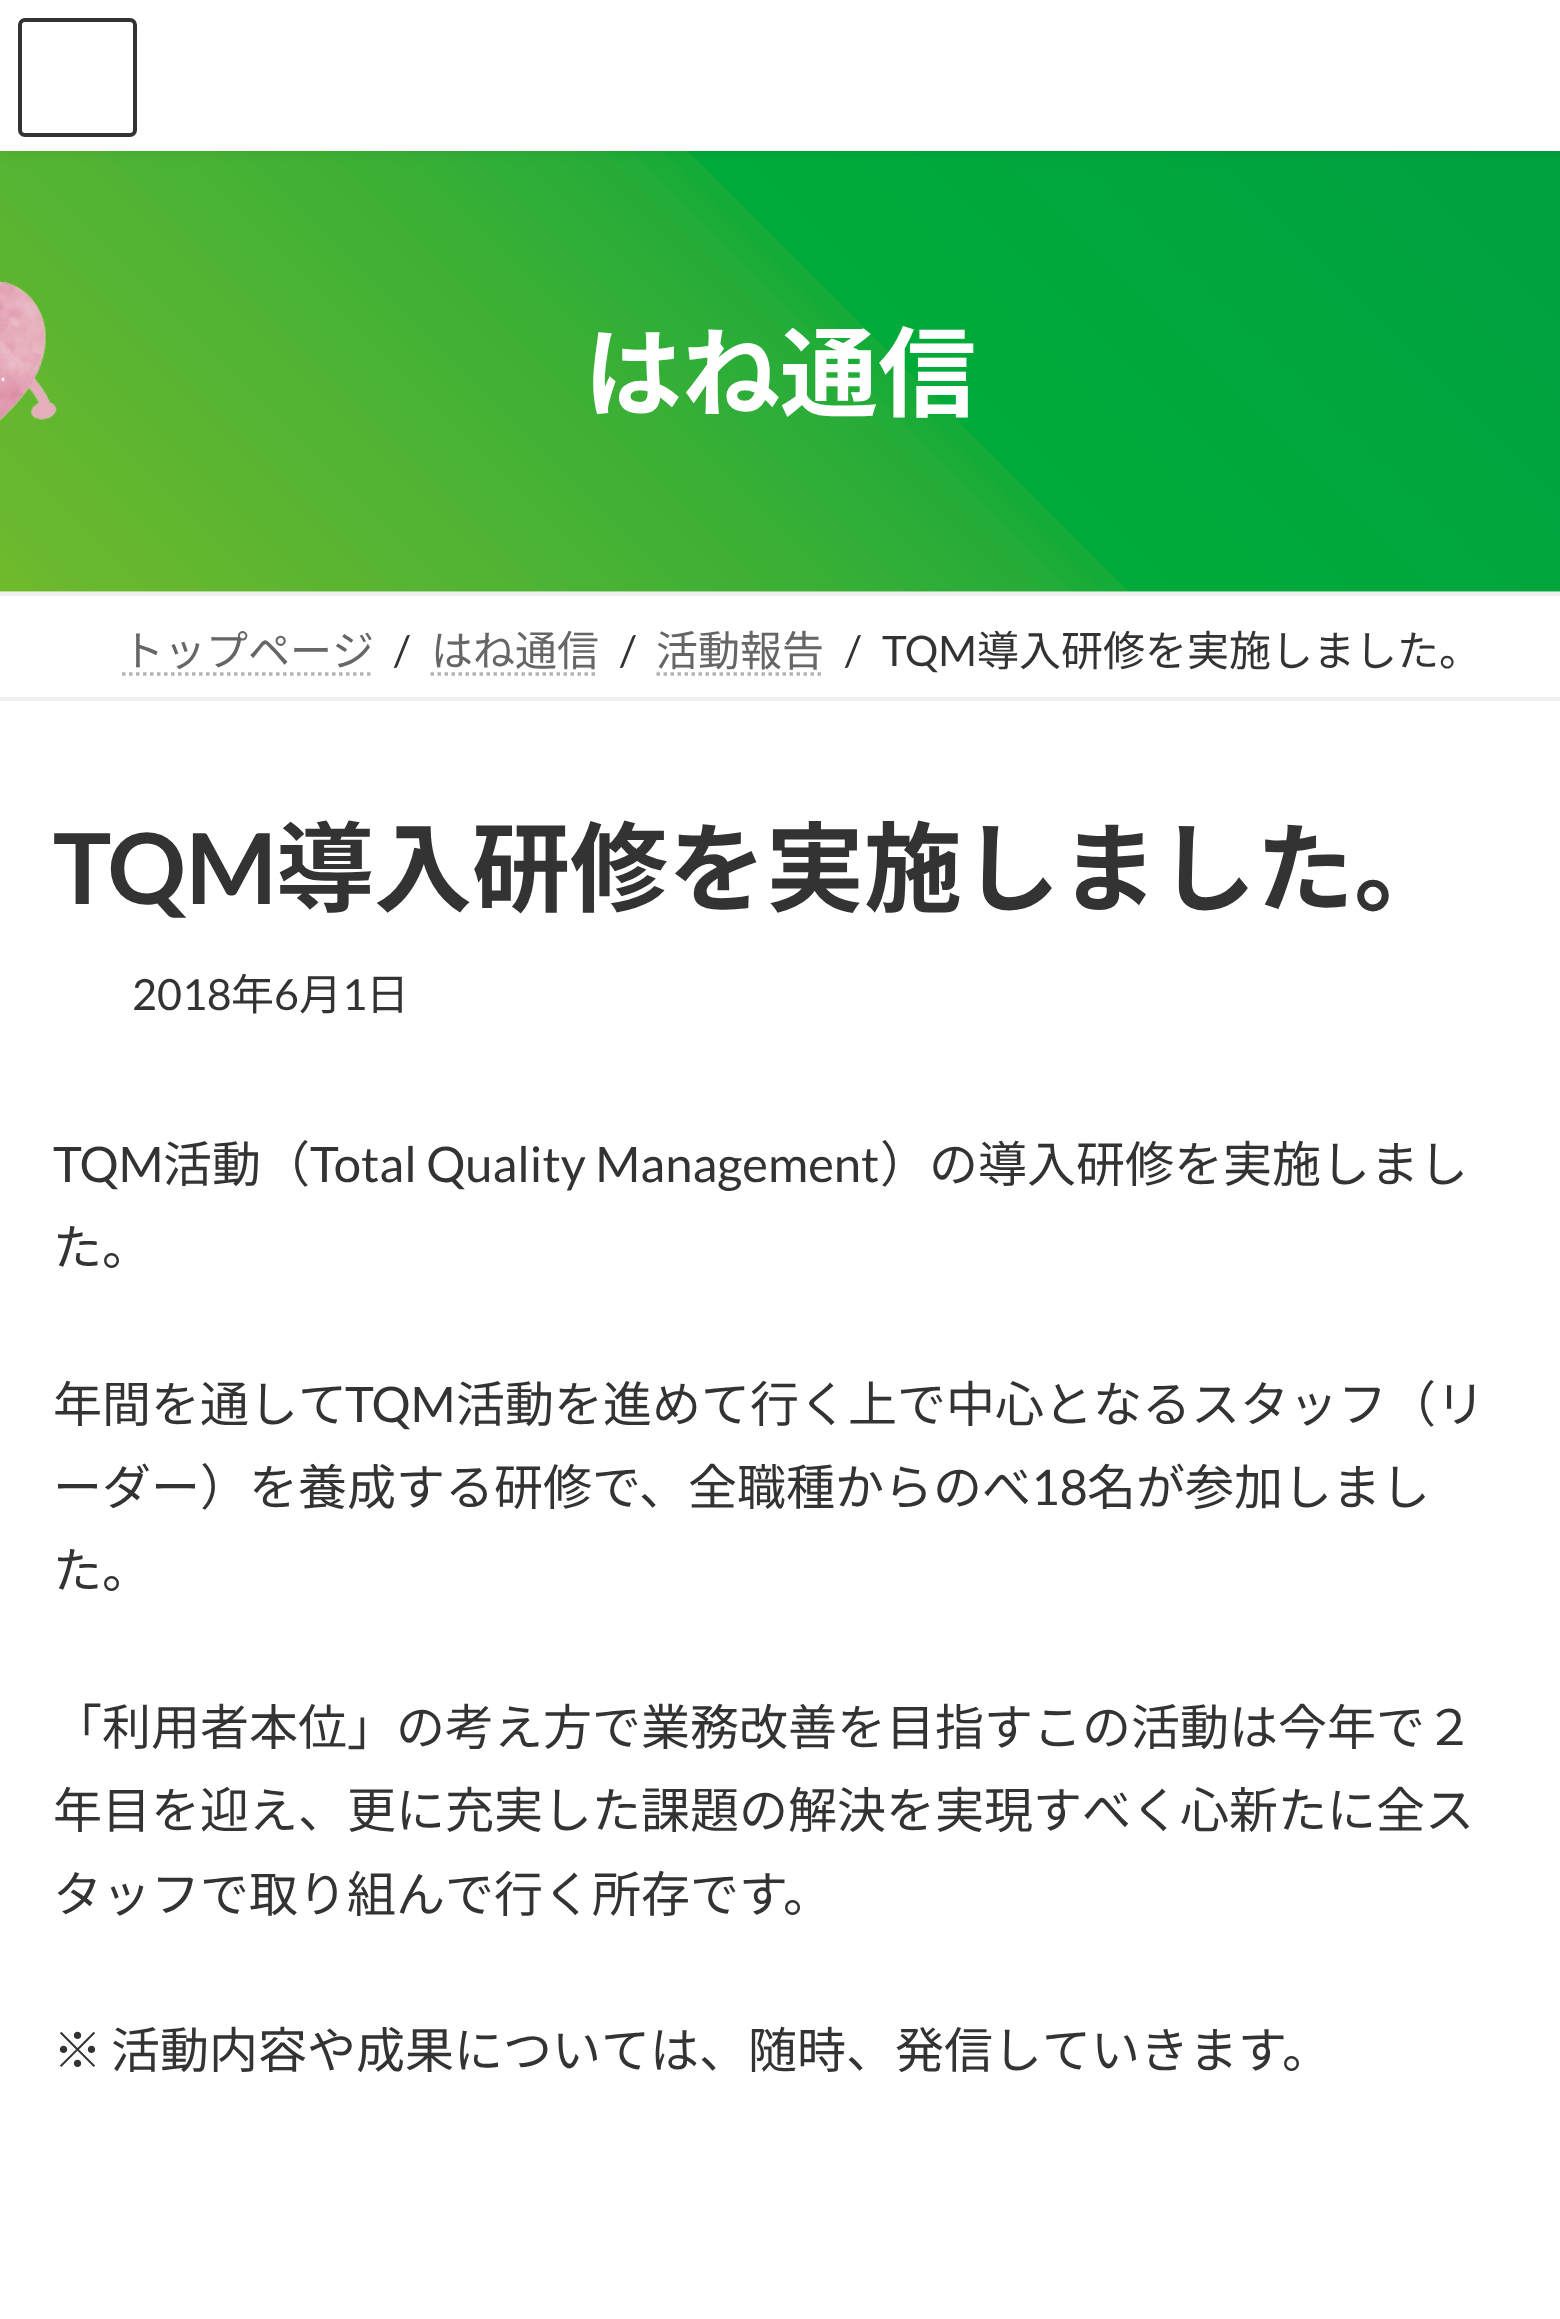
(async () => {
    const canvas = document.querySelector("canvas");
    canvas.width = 1560;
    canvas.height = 2319;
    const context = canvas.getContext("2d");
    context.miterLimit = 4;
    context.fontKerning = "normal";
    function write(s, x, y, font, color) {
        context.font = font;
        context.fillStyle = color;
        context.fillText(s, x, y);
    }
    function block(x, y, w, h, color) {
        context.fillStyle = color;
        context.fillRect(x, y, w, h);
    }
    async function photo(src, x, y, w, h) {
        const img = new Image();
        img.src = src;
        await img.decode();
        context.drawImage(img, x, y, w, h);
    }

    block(0, 0, 1560, 2319, "rgb(255, 255, 255)");
    await photo("media/1.png", 0, 151, 1560, 441);
    context.fillStyle = "rgba(0, 0, 0, 0.05)";
    context.filter = "blur(5px)";
    context.beginPath();
    context.rect(0, 4, 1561, 150);
    context.fill();
    context.filter = "none";
    block(0, 0, 1560, 151, "rgb(255, 255, 255)");
    context.beginPath();
    context.roundRect(20, 20, 115, 115, 5);
    context.strokeStyle = "rgb(51, 51, 51)";
    context.lineWidth = 4;
    context.stroke();
    write("はね通信", 584, 409, "bold 98px Noto Sans JP", "rgb(255, 255, 255)");
    block(0, 592, 1560, 4, "rgb(240, 240, 240)");
    block(0, 697, 1560, 4, "rgb(240, 240, 240)");
    write("トップページ", 122, 666, "42px Noto Sans JP", "rgb(102, 102, 102)");
    context.beginPath();
    context.moveTo(122, 674);
    context.lineTo(373, 674);
    context.strokeStyle = "rgb(179, 179, 179)";
    context.lineWidth = 3.5;
    context.setLineDash([3.5, 3.5]);
    context.stroke();
    write("/", 394, 666, "42px Lato", "rgb(51, 51, 51)");
    write("はね通信", 431, 666, "42px Noto Sans JP", "rgb(102, 102, 102)");
    context.beginPath();
    context.moveTo(430.5, 674);
    context.lineTo(598.5, 674);
    context.stroke();
    write("/", 620, 666, "42px Lato", "rgb(51, 51, 51)");
    write("活動報告", 656, 666, "42px Noto Sans JP", "rgb(102, 102, 102)");
    context.beginPath();
    context.moveTo(656.5, 674);
    context.lineTo(824.5, 674);
    context.stroke();
    write("/", 845, 666, "42px Lato", "rgb(51, 51, 51)");
    write("TQM", 882, 666, "42px Lato", "rgb(51, 51, 51)");
    write("導入研修を実施しました。", 977, 666, "42px Noto Sans JP", "rgb(51, 51, 51)");
    write("TQM", 53, 904, "bold 98px Lato", "rgb(51, 51, 51)");
    write("導入研修を実施しました。", 276, 904, "bold 98px Noto Sans JP", "rgb(51, 51, 51)");
    write("2018", 132, 1010, "43px Lato", "rgb(51, 51, 51)");
    write("年", 231, 1010, "43px Noto Sans JP", "rgb(51, 51, 51)");
    write("6", 274, 1010, "43px Lato", "rgb(51, 51, 51)");
    write("月", 299, 1010, "43px Noto Sans JP", "rgb(51, 51, 51)");
    write("1", 342, 1010, "43px Lato", "rgb(51, 51, 51)");
    write("日", 366, 1010, "43px Noto Sans JP", "rgb(51, 51, 51)");
    write("TQM", 53, 1182, "49px Lato", "rgb(51, 51, 51)");
    write("活動（", 163, 1182, "49px Noto Sans JP", "rgb(51, 51, 51)");
    write("Total Quality Management", 310, 1182, "49px Lato", "rgb(51, 51, 51)");
    write("）の導入研修を実施しまし", 880, 1182, "49px Noto Sans JP", "rgb(51, 51, 51)");
    write("た。", 53, 1265, "49px Noto Sans JP", "rgb(51, 51, 51)");
    write("年間を通して", 53, 1422, "49px Noto Sans JP", "rgb(51, 51, 51)");
    write("TQM", 345, 1422, "49px Lato", "rgb(51, 51, 51)");
    write("活動を進めて行く上で中心となるスタッフ（リ", 456, 1422, "49px Noto Sans JP", "rgb(51, 51, 51)");
    write("ーダー）を養成する研修で、全職種からのべ", 53, 1505, "49px Noto Sans JP", "rgb(51, 51, 51)");
    write("18", 1031, 1505, "49px Lato", "rgb(51, 51, 51)");
    write("名が参加しまし", 1087, 1505, "49px Noto Sans JP", "rgb(51, 51, 51)");
    write("た。", 53, 1588, "49px Noto Sans JP", "rgb(51, 51, 51)");
    write("「利用者本位」の考え方で業務改善を目指すこの活動は今年で２", 53, 1745, "49px Noto Sans JP", "rgb(51, 51, 51)");
    write("年目を迎え、更に充実した課題の解決を実現すべく心新たに全ス", 53, 1828, "49px Noto Sans JP", "rgb(51, 51, 51)");
    write("タッフで取り組んで行く所存です。", 53, 1912, "49px Noto Sans JP", "rgb(51, 51, 51)");
    context.wordSpacing = "-2px";
    write("※ 活動内容や成果については、随時、発信していきます。", 53, 2068, "49px Noto Sans JP", "rgb(51, 51, 51)");
})();
